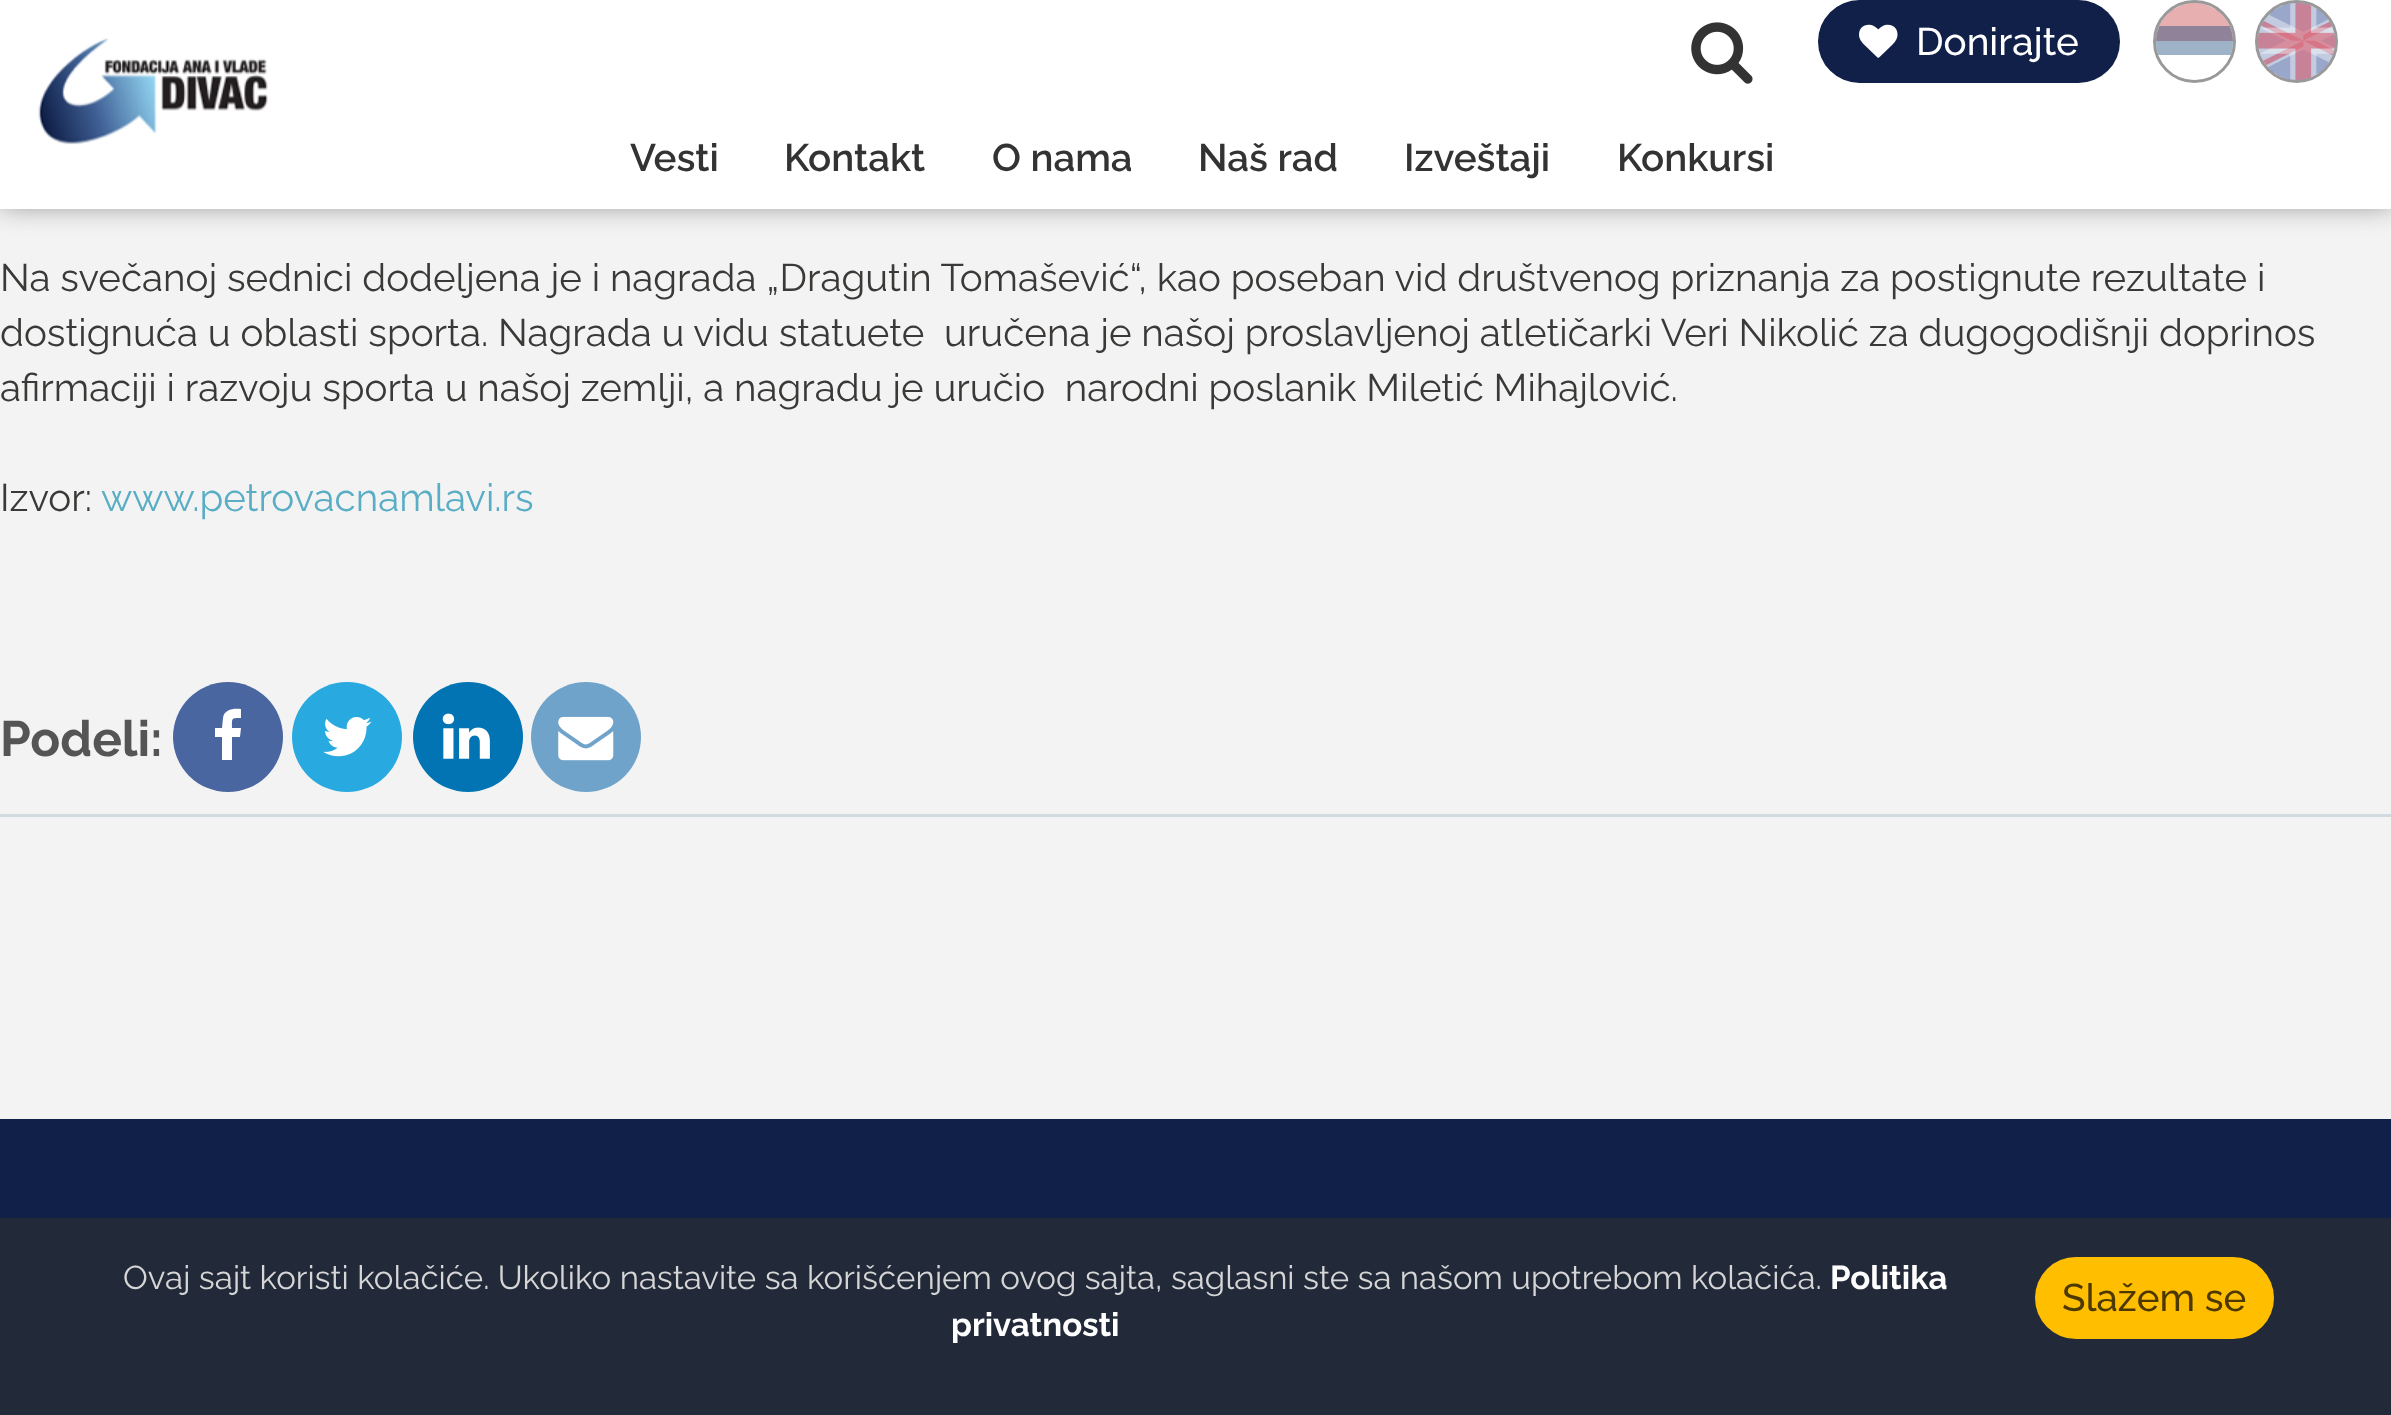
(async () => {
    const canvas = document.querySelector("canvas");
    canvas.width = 2391;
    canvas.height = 1415;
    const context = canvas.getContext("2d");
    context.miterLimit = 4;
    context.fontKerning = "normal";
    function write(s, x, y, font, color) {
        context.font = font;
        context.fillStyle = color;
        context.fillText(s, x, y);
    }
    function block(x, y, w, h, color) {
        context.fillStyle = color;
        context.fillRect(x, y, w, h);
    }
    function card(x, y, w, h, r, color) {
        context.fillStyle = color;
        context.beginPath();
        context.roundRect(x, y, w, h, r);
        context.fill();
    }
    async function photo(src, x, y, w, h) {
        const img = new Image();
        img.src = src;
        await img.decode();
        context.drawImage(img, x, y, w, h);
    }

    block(0, 0, 2391, 1415, "rgb(243, 243, 243)");
    context.fillStyle = "rgb(128, 128, 128)";
    context.filter = "blur(14px)";
    context.beginPath();
    context.rect(0, -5, 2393, 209);
    context.fill();
    context.filter = "none";
    block(0, 0, 2391, 209, "rgb(255, 255, 255)");
    await photo("media/1.png", 38, 38, 230, 107);
    await photo("media/2.png", 1691, 22, 62, 62);
    card(1818, 0, 302, 83, 41.5, "rgb(16, 32, 72)");
    await photo("media/3.png", 1859, 24, 39, 34);
    write("Donirajte", 1916, 55, "500 38.5px Raleway", "rgb(255, 255, 255)");
    context.beginPath();
    context.arc(2194.5, 41.5, 40, 0, Math.PI * 2);
    context.strokeStyle = "rgb(153, 153, 153)";
    context.lineWidth = 3;
    context.stroke();
    context.save();
    context.beginPath();
    context.roundRect(2156, 3, 77, 77, 38.5);
    context.clip();
    block(2156, 3, 77, 38, "rgba(198, 54, 60, 0.4)");
    context.fillStyle = "rgba(255, 255, 255, 0.4)";
    context.beginPath();
    context.roundRect(2156, 41, 77, 39, [0, 0, 38.5, 38.5]);
    context.fill();
    block(2156, 26, 77, 29, "rgba(12, 64, 118, 0.4)");
    context.restore();
    context.beginPath();
    context.arc(2296.5, 41.5, 40, 0, Math.PI * 2);
    context.stroke();
    await photo("media/4.png", 2258, 3, 77, 77);
    write("Vesti", 630, 171, "600 38.5px Raleway", "rgb(51, 51, 51)");
    write("Kontakt", 784, 171, "600 38.5px Raleway", "rgb(51, 51, 51)");
    write("O nama", 992, 171, "600 38.5px Raleway", "rgb(51, 51, 51)");
    write("Naš rad", 1198, 171, "600 38.5px Raleway", "rgb(51, 51, 51)");
    write("Izveštaji", 1404, 171, "600 38.5px Raleway", "rgb(51, 51, 51)");
    write("Konkursi", 1617, 171, "600 38.5px Raleway", "rgb(51, 51, 51)");
    write("Na svečanoj sednici dodeljena je i nagrada „Dragutin Tomašević“, kao poseban vid društvenog priznanja za postignute rezultate i", 0, 291, "38.5px Raleway", "rgb(58, 57, 55)");
    write("dostignuća u oblasti sporta. Nagrada u vidu statuete  uručena je našoj proslavljenoj atletičarki Veri Nikolić za dugogodišnji doprinos", 0, 346, "38.5px Raleway", "rgb(58, 57, 55)");
    write("afirmaciji i razvoju sporta u našoj zemlji, a nagradu je uručio  narodni poslanik Miletić Mihajlović.", 0, 401, "38.5px Raleway", "rgb(58, 57, 55)");
    write("Izvor:", 0, 511, "38.5px Raleway", "rgb(58, 57, 55)");
    write("www.petrovacnamlavi.rs", 101, 511, "38.5px Raleway", "rgb(89, 173, 197)");
    block(0, 814, 2391, 3, "rgb(209, 218, 223)");
    write("Podeli:", 0, 756, "bold 49.5px Raleway", "rgb(85, 85, 85)");
    context.fillStyle = "rgb(73, 102, 160)";
    context.beginPath();
    context.arc(228, 737, 55, 0, Math.PI * 2);
    context.fill();
    context.fillStyle = "rgb(255, 255, 255)";
    context.beginPath();
    context.moveTo(241, 709);
    context.lineTo(241, 718);
    context.bezierCurveTo(231, 718, 232, 718, 232, 728);
    context.lineTo(241, 728);
    context.lineTo(240, 737);
    context.lineTo(232, 737);
    context.lineTo(232, 760);
    context.lineTo(222, 760);
    context.lineTo(222, 737);
    context.lineTo(215, 737);
    context.lineTo(215, 728);
    context.lineTo(222, 728);
    context.lineTo(223, 718);
    context.bezierCurveTo(224, 709, 234, 708, 241, 709);
    context.closePath();
    context.fill();
    context.fillStyle = "rgb(40, 169, 224)";
    context.beginPath();
    context.arc(347, 737, 55, 0, Math.PI * 2);
    context.fill();
    await photo("media/5.png", 323, 717, 49, 40);
    context.fillStyle = "rgb(2, 116, 179)";
    context.beginPath();
    context.arc(468, 737, 55, 0, Math.PI * 2);
    context.fill();
    await photo("media/6.png", 442, 713, 48, 46);
    context.fillStyle = "rgb(111, 163, 202)";
    context.beginPath();
    context.arc(586, 737, 55, 0, Math.PI * 2);
    context.fill();
    await photo("media/7.png", 558, 716, 56, 45);
    block(0, 1119, 2391, 99, "rgb(16, 32, 72)");
    block(0, 1218, 2391, 197, "rgb(34, 42, 58)");
    write("Ovaj sajt koristi kolačiće. Ukoliko nastavite sa korišćenjem ovog sajta, saglasni ste sa našom upotrebom kolačića.", 123, 1289, "33px Raleway", "rgb(214, 214, 214)");
    write("Politika", 1830, 1289, "bold 33px Raleway", "rgb(255, 255, 255)");
    write("privatnosti", 951, 1336, "bold 33px Raleway", "rgb(255, 255, 255)");
    card(2035, 1257, 239, 82, 41, "rgb(255, 191, 0)");
    write("Slažem se", 2062, 1311, "500 38.5px Raleway", "rgb(77, 57, 0)");
})();
